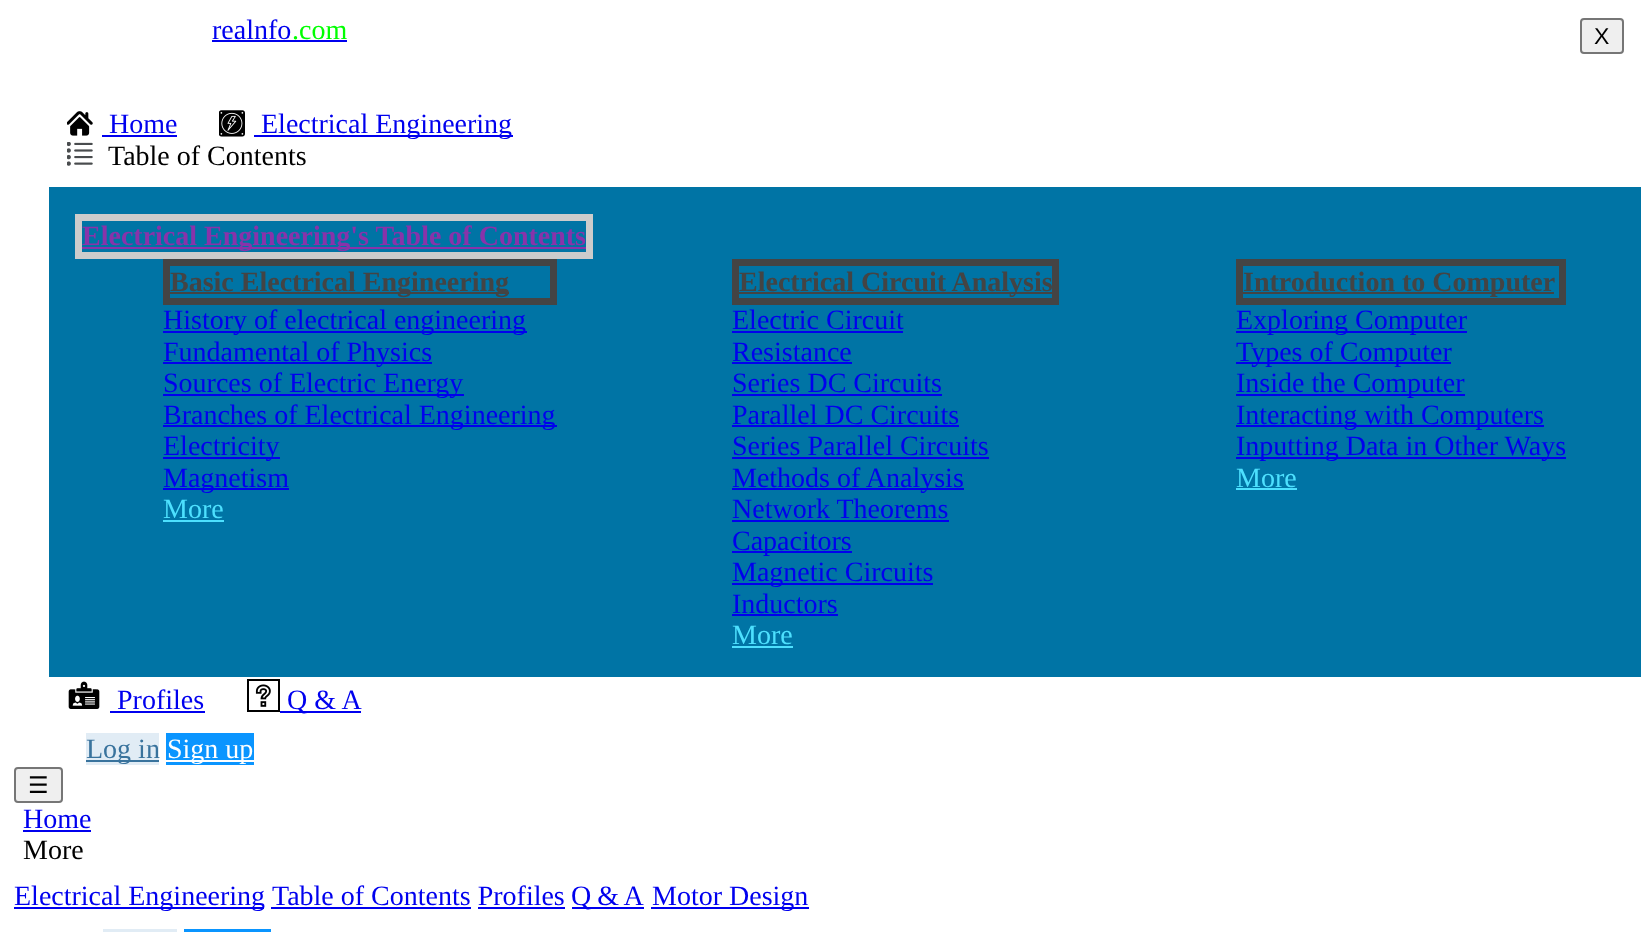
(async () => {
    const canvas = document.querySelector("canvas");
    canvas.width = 1641;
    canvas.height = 932;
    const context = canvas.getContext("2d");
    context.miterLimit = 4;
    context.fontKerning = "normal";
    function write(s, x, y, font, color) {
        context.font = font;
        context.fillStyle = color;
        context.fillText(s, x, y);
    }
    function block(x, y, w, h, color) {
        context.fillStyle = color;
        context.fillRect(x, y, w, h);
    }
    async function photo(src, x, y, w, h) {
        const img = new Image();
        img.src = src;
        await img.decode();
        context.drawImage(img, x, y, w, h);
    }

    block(0, 0, 1641, 932, "rgb(255, 255, 255)");
    write("realnfo", 212, 39, "28px Liberation Serif", "rgb(0, 0, 238)");
    block(212, 40, 135, 2, "rgb(0, 0, 238)");
    write(".com", 292, 39, "28px Liberation Serif", "rgb(0, 255, 0)");
    await photo("media/1.png", 67, 142, 26, 24);
    block(49, 187, 1592, 490, "rgb(0, 116, 165)");
    context.fillStyle = "rgb(239, 239, 239)";
    context.beginPath();
    context.roundRect(1581, 19, 42, 34, 3);
    context.fill();
    context.strokeStyle = "rgb(118, 118, 118)";
    context.lineWidth = 2;
    context.stroke();
    write("X", 1594, 44, "23px Liberation Sans", "rgb(0, 0, 0)");
    context.strokeStyle = "rgb(204, 204, 204)";
    context.lineWidth = 7;
    context.strokeRect(78.5, 217.5, 511, 38);
    block(82, 247, 504, 2, "rgb(136, 51, 170)");
    write("Electrical Engineering's Table of Contents", 82, 245, "bold 28px Liberation Serif", "rgb(136, 51, 170)");
    context.strokeStyle = "rgb(68, 68, 68)";
    context.strokeRect(166.5, 262.5, 387, 39);
    block(170, 292, 339, 2, "rgb(68, 68, 68)");
    write("Basic Electrical Engineering", 170, 291, "bold 28px Liberation Serif", "rgb(68, 68, 68)");
    block(163, 331, 364, 2, "rgb(0, 0, 238)");
    write("History of electrical engineering", 163, 329, "28px Liberation Serif", "rgb(0, 0, 238)");
    block(163, 362, 269, 2, "rgb(0, 0, 238)");
    write("Fundamental of Physics", 163, 361, "28px Liberation Serif", "rgb(0, 0, 238)");
    block(163, 394, 301, 2, "rgb(0, 0, 238)");
    write("Sources of Electric Energy", 163, 392, "28px Liberation Serif", "rgb(0, 0, 238)");
    block(163, 425, 394, 2, "rgb(0, 0, 238)");
    write("Branches of Electrical Engineering", 163, 424, "28px Liberation Serif", "rgb(0, 0, 238)");
    block(163, 457, 117, 2, "rgb(0, 0, 238)");
    write("Electricity", 163, 455, "28px Liberation Serif", "rgb(0, 0, 238)");
    block(163, 488, 126, 2, "rgb(0, 0, 238)");
    write("Magnetism", 163, 487, "28px Liberation Serif", "rgb(0, 0, 238)");
    write("More", 163, 518, "28px Liberation Serif", "rgb(77, 224, 254)");
    block(163, 520, 61, 2, "rgb(77, 224, 254)");
    context.strokeRect(735.5, 262.5, 320, 39);
    block(739, 292, 313, 2, "rgb(68, 68, 68)");
    write("Electrical Circuit Analysis", 739, 291, "bold 28px Liberation Serif", "rgb(68, 68, 68)");
    write("Electric Circuit", 732, 329, "28px Liberation Serif", "rgb(0, 0, 238)");
    block(732, 331, 171, 2, "rgb(0, 0, 238)");
    write("Resistance", 732, 361, "28px Liberation Serif", "rgb(0, 0, 238)");
    block(732, 362, 120, 2, "rgb(0, 0, 238)");
    write("Series DC Circuits", 732, 392, "28px Liberation Serif", "rgb(0, 0, 238)");
    block(732, 394, 210, 2, "rgb(0, 0, 238)");
    write("Parallel DC Circuits", 732, 424, "28px Liberation Serif", "rgb(0, 0, 238)");
    block(732, 425, 227, 2, "rgb(0, 0, 238)");
    write("Series Parallel Circuits", 732, 455, "28px Liberation Serif", "rgb(0, 0, 238)");
    block(732, 457, 257, 2, "rgb(0, 0, 238)");
    block(732, 488, 232, 2, "rgb(0, 0, 238)");
    write("Methods of Analysis", 732, 487, "28px Liberation Serif", "rgb(0, 0, 238)");
    write("Network Theorems", 732, 518, "28px Liberation Serif", "rgb(0, 0, 238)");
    block(732, 520, 217, 2, "rgb(0, 0, 238)");
    block(732, 551, 120, 2, "rgb(0, 0, 238)");
    write("Capacitors", 732, 550, "28px Liberation Serif", "rgb(0, 0, 238)");
    block(732, 583, 201, 2, "rgb(0, 0, 238)");
    write("Magnetic Circuits", 732, 581, "28px Liberation Serif", "rgb(0, 0, 238)");
    write("Inductors", 732, 613, "28px Liberation Serif", "rgb(0, 0, 238)");
    block(732, 614, 106, 2, "rgb(0, 0, 238)");
    write("More", 732, 644, "28px Liberation Serif", "rgb(77, 224, 254)");
    block(732, 646, 61, 2, "rgb(77, 224, 254)");
    context.strokeRect(1239.5, 262.5, 323, 39);
    block(1243, 292, 311, 2, "rgb(68, 68, 68)");
    write("Introduction to Computer", 1243, 291, "bold 28px Liberation Serif", "rgb(68, 68, 68)");
    block(1236, 331, 231, 2, "rgb(0, 0, 238)");
    write("Exploring Computer", 1236, 329, "28px Liberation Serif", "rgb(0, 0, 238)");
    block(1236, 362, 215, 2, "rgb(0, 0, 238)");
    write("Types of Computer", 1236, 361, "28px Liberation Serif", "rgb(0, 0, 238)");
    block(1236, 394, 229, 2, "rgb(0, 0, 238)");
    write("Inside the Computer", 1236, 392, "28px Liberation Serif", "rgb(0, 0, 238)");
    block(1236, 425, 308, 2, "rgb(0, 0, 238)");
    write("Interacting with Computers", 1236, 424, "28px Liberation Serif", "rgb(0, 0, 238)");
    block(1236, 457, 330, 2, "rgb(0, 0, 238)");
    write("Inputting Data in Other Ways", 1236, 455, "28px Liberation Serif", "rgb(0, 0, 238)");
    write("More", 1236, 487, "28px Liberation Serif", "rgb(77, 224, 254)");
    block(1236, 488, 61, 2, "rgb(77, 224, 254)");
    write("Table of Contents", 108, 165, "28px Liberation Serif", "rgb(0, 0, 0)");
    await photo("media/2.png", 67, 111, 26, 25);
    write("Home", 109, 133, "28px Liberation Serif", "rgb(0, 0, 238)");
    block(102, 135, 75, 2, "rgb(0, 0, 238)");
    await photo("media/3.png", 219, 110, 26, 27);
    block(254, 135, 259, 2, "rgb(0, 0, 238)");
    write("Electrical Engineering", 261, 133, "28px Liberation Serif", "rgb(0, 0, 238)");
    await photo("media/4.png", 68, 681, 32, 28);
    write("Profiles", 117, 709, "28px Liberation Serif", "rgb(0, 0, 238)");
    block(110, 711, 95, 2, "rgb(0, 0, 238)");
    context.strokeStyle = "rgb(0, 0, 0)";
    context.lineWidth = 2;
    context.strokeRect(248, 680, 31, 31);
    await photo("media/5.png", 255, 684, 16, 23);
    block(280, 711, 81, 2, "rgb(0, 0, 238)");
    write("Q & A", 287, 709, "28px Liberation Serif", "rgb(0, 0, 238)");
    block(86, 733, 73, 32, "rgb(225, 236, 245)");
    block(86, 760, 73, 2, "rgb(57, 115, 157)");
    write("Log in", 86, 758, "28px Liberation Serif", "rgb(57, 115, 157)");
    block(166, 733, 88, 32, "rgb(10, 149, 255)");
    block(166, 760, 88, 2, "rgb(255, 255, 255)");
    write("Sign up", 167, 758, "28px Liberation Serif", "rgb(255, 255, 255)");
    context.fillStyle = "rgb(239, 239, 239)";
    context.beginPath();
    context.roundRect(15, 768, 47, 34, 3);
    context.fill();
    context.strokeStyle = "rgb(118, 118, 118)";
    context.stroke();
    write("☰", 28, 793, "23px DejaVu Sans", "rgb(0, 0, 0)");
    write("Home", 23, 828, "28px Liberation Serif", "rgb(0, 0, 238)");
    block(23, 830, 68, 2, "rgb(0, 0, 238)");
    write("More", 23, 859, "28px Liberation Serif", "rgb(0, 0, 0)");
    block(14, 907, 250, 2, "rgb(0, 0, 238)");
    write("Electrical Engineering", 14, 905, "28px Liberation Serif", "rgb(0, 0, 238)");
    write("Table of Contents Profiles", 272, 905, "28px Liberation Serif", "rgb(0, 0, 238)");
    block(271, 907, 200, 2, "rgb(0, 0, 238)");
    block(572, 907, 72, 2, "rgb(0, 0, 238)");
    context.wordSpacing = "-1px";
    write("Q & A", 571, 905, "28px Liberation Serif", "rgb(0, 0, 238)");
    block(651, 907, 158, 2, "rgb(0, 0, 238)");
    context.wordSpacing = "0px";
    write("Motor Design", 652, 905, "28px Liberation Serif", "rgb(0, 0, 238)");
    block(478, 907, 87, 2, "rgb(0, 0, 238)");
    block(103, 929, 74, 3, "rgb(225, 236, 245)");
    block(184, 929, 87, 3, "rgb(10, 149, 255)");
})();
